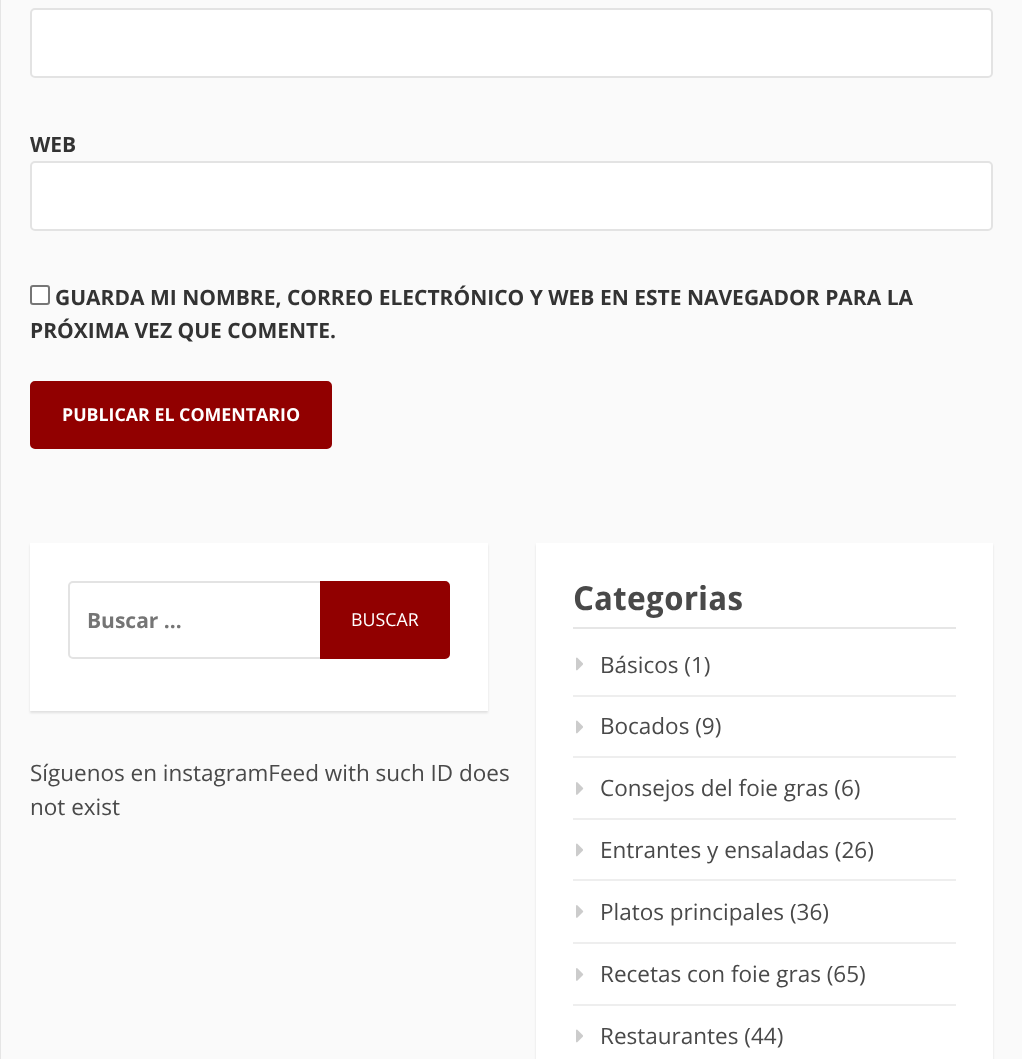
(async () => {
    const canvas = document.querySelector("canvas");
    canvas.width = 1022;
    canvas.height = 1059;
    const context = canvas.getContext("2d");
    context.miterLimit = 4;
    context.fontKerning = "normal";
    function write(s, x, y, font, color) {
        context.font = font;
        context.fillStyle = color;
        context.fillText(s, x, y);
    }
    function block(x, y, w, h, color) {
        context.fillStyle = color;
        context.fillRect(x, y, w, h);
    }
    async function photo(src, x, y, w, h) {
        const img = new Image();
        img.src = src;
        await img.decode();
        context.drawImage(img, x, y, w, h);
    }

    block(0, 0, 1022, 1059, "rgb(250, 250, 250)");
    block(0, 0, 1, 1059, "rgb(229, 229, 229)");
    context.fillStyle = "rgb(255, 255, 255)";
    context.beginPath();
    context.roundRect(31, 9, 961, 68, 4);
    context.fill();
    context.strokeStyle = "rgb(227, 227, 227)";
    context.lineWidth = 2;
    context.stroke();
    write("WEB", 30, 152, "bold 21px Open Sans", "rgb(51, 51, 51)");
    context.fillStyle = "rgb(255, 255, 255)";
    context.beginPath();
    context.roundRect(31, 162, 961, 68, 4);
    context.fill();
    context.stroke();
    context.beginPath();
    context.roundRect(31, 286, 18, 18, 2);
    context.fill();
    context.strokeStyle = "rgb(118, 118, 118)";
    context.stroke();
    write("GUARDA MI NOMBRE, CORREO ELECTRÓNICO Y WEB EN ESTE NAVEGADOR PARA LA", 55, 305, "bold 21px Open Sans", "rgb(51, 51, 51)");
    write("PRÓXIMA VEZ QUE COMENTE.", 30, 338, "bold 21px Open Sans", "rgb(51, 51, 51)");
    context.fillStyle = "rgb(145, 0, 0)";
    context.beginPath();
    context.roundRect(31, 382, 300, 66, 4);
    context.fill();
    context.strokeStyle = "rgb(145, 0, 0)";
    context.stroke();
    write("PUBLICAR EL COMENTARIO", 62, 421, "bold 17.8px Open Sans", "rgb(255, 255, 255)");
    context.fillStyle = "rgba(0, 0, 0, 0.1)";
    context.filter = "blur(1px)";
    context.beginPath();
    context.rect(30, 545, 458, 168);
    context.fill();
    context.filter = "none";
    block(30, 543, 458, 168, "rgb(255, 255, 255)");
    context.beginPath();
    context.roundRect(69, 582, 380, 76, 4);
    context.strokeStyle = "rgb(227, 227, 227)";
    context.stroke();
    write("Buscar …", 87, 628, "bold 21px Open Sans", "rgb(117, 117, 117)");
    context.fillStyle = "rgb(145, 0, 0)";
    context.beginPath();
    context.roundRect(321, 582, 128, 76, [0, 4, 4, 0]);
    context.fill();
    context.strokeStyle = "rgb(145, 0, 0)";
    context.stroke();
    write("BUSCAR", 351, 626, "17.8px Open Sans", "rgb(255, 255, 255)");
    context.fillStyle = "rgba(0, 0, 0, 0.1)";
    context.filter = "blur(1px)";
    context.beginPath();
    context.rect(536, 545, 457, 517);
    context.fill();
    context.filter = "none";
    block(536, 543, 457, 516, "rgb(255, 255, 255)");
    block(573, 627, 383, 2, "rgb(230, 230, 230)");
    write("Categorias", 573, 610, "bold 33px Droid Sans", "rgb(73, 73, 73)");
    block(573, 695, 383, 2, "rgb(238, 238, 238)");
    await photo("media/1.png", 576, 657, 7, 14);
    write("Básicos (1)", 600, 673, "22.5px Open Sans", "rgb(73, 73, 73)");
    block(573, 756, 383, 2, "rgb(238, 238, 238)");
    await photo("media/1.png", 576, 720, 7, 14);
    write("Bocados (9)", 600, 734, "22.5px Open Sans", "rgb(73, 73, 73)");
    block(573, 818, 383, 2, "rgb(238, 238, 238)");
    await photo("media/2.png", 576, 782, 8, 13);
    write("Consejos del foie gras (6)", 600, 796, "22.5px Open Sans", "rgb(73, 73, 73)");
    block(573, 879, 383, 2, "rgb(238, 238, 238)");
    await photo("media/1.png", 576, 843, 7, 14);
    write("Entrantes y ensaladas (26)", 600, 858, "22.5px Open Sans", "rgb(73, 73, 73)");
    block(573, 942, 383, 2, "rgb(238, 238, 238)");
    await photo("media/2.png", 576, 905, 8, 13);
    write("Platos principales (36)", 600, 920, "22.5px Open Sans", "rgb(73, 73, 73)");
    block(573, 1004, 383, 2, "rgb(238, 238, 238)");
    await photo("media/2.png", 576, 968, 8, 13);
    write("Recetas con foie gras (65)", 600, 982, "22.5px Open Sans", "rgb(73, 73, 73)");
    await photo("media/1.png", 576, 1029, 7, 14);
    write("Restaurantes (44)", 600, 1044, "22.5px Open Sans", "rgb(73, 73, 73)");
    write("Síguenos en instagramFeed with such ID does", 30, 781, "22.5px Open Sans", "rgb(73, 73, 73)");
    write("not exist", 30, 815, "22.5px Open Sans", "rgb(73, 73, 73)");
})();
